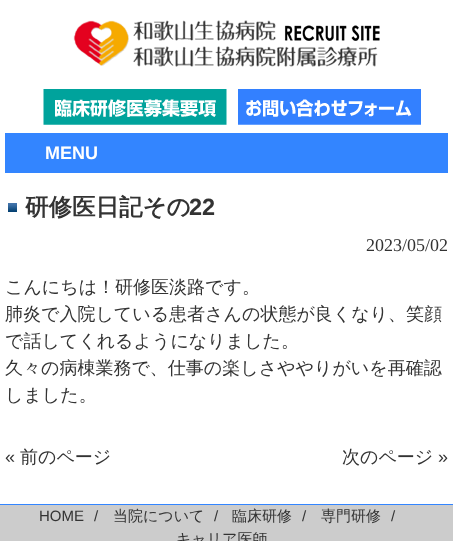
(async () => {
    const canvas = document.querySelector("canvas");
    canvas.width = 453;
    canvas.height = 541;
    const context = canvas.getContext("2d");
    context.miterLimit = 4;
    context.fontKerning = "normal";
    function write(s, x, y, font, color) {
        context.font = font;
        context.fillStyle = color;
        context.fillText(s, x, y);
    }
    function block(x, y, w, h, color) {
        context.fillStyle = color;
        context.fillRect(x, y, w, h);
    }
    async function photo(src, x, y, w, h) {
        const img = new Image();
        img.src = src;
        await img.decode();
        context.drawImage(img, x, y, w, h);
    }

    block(0, 0, 453, 541, "rgb(255, 255, 255)");
    await photo("media/1.png", 73, 20, 307, 47);
    await photo("media/2.png", 43, 89, 184, 36);
    await photo("media/3.png", 238, 89, 183, 36);
    block(5, 133, 443, 40, "rgb(51, 133, 255)");
    write("MENU", 45, 159, "bold 18px Liberation Sans", "rgb(255, 255, 255)");
    await photo("media/4.png", 8, 203, 9, 9);
    write("研修医日記その", 25, 215, "bold 23.5px WenQuanYi Zen Hei", "rgb(51, 51, 51)");
    write("22", 189, 215, "bold 23.5px Liberation Sans", "rgb(51, 51, 51)");
    write("2023/05/02", 366, 251, "18px Liberation Serif", "rgb(51, 51, 51)");
    write("こんにちは！研修医淡路です。", 5, 293, "500 18px WenQuanYi Zen Hei", "rgb(51, 51, 51)");
    write("肺炎で入院している患者さんの状態が良くなり、笑顔", 5, 320, "500 18px WenQuanYi Zen Hei", "rgb(51, 51, 51)");
    write("で話してくれるようになりました。", 5, 347, "500 18px WenQuanYi Zen Hei", "rgb(51, 51, 51)");
    write("久々の病棟業務で、仕事の楽しさややりがいを再確認", 5, 374, "500 18px WenQuanYi Zen Hei", "rgb(51, 51, 51)");
    write("しました。", 5, 401, "500 18px WenQuanYi Zen Hei", "rgb(51, 51, 51)");
    write("«", 5, 463, "18px Liberation Sans", "rgb(51, 51, 51)");
    write("前のページ", 20, 463, "500 18px WenQuanYi Zen Hei", "rgb(51, 51, 51)");
    write("次のページ", 342, 463, "500 18px WenQuanYi Zen Hei", "rgb(51, 51, 51)");
    write("»", 438, 463, "18px Liberation Sans", "rgb(51, 51, 51)");
    block(0, 505, 453, 36, "rgb(204, 204, 204)");
    block(0, 504, 453, 1, "rgb(51, 133, 255)");
    write("HOME", 39, 521, "15px Liberation Sans", "rgb(51, 51, 51)");
    write("/", 94, 521, "15px Liberation Sans", "rgb(51, 51, 51)");
    write("当院について", 113, 521, "500 15px WenQuanYi Zen Hei", "rgb(51, 51, 51)");
    write("/", 214, 521, "15px Liberation Sans", "rgb(51, 51, 51)");
    write("臨床研修", 232, 521, "500 15px WenQuanYi Zen Hei", "rgb(51, 51, 51)");
    write("/", 302, 521, "15px Liberation Sans", "rgb(51, 51, 51)");
    write("専門研修", 321, 521, "500 15px WenQuanYi Zen Hei", "rgb(51, 51, 51)");
    write("/", 391, 521, "15px Liberation Sans", "rgb(51, 51, 51)");
    write("キャリア医師", 176, 544, "500 15px WenQuanYi Zen Hei", "rgb(51, 51, 51)");
})();
